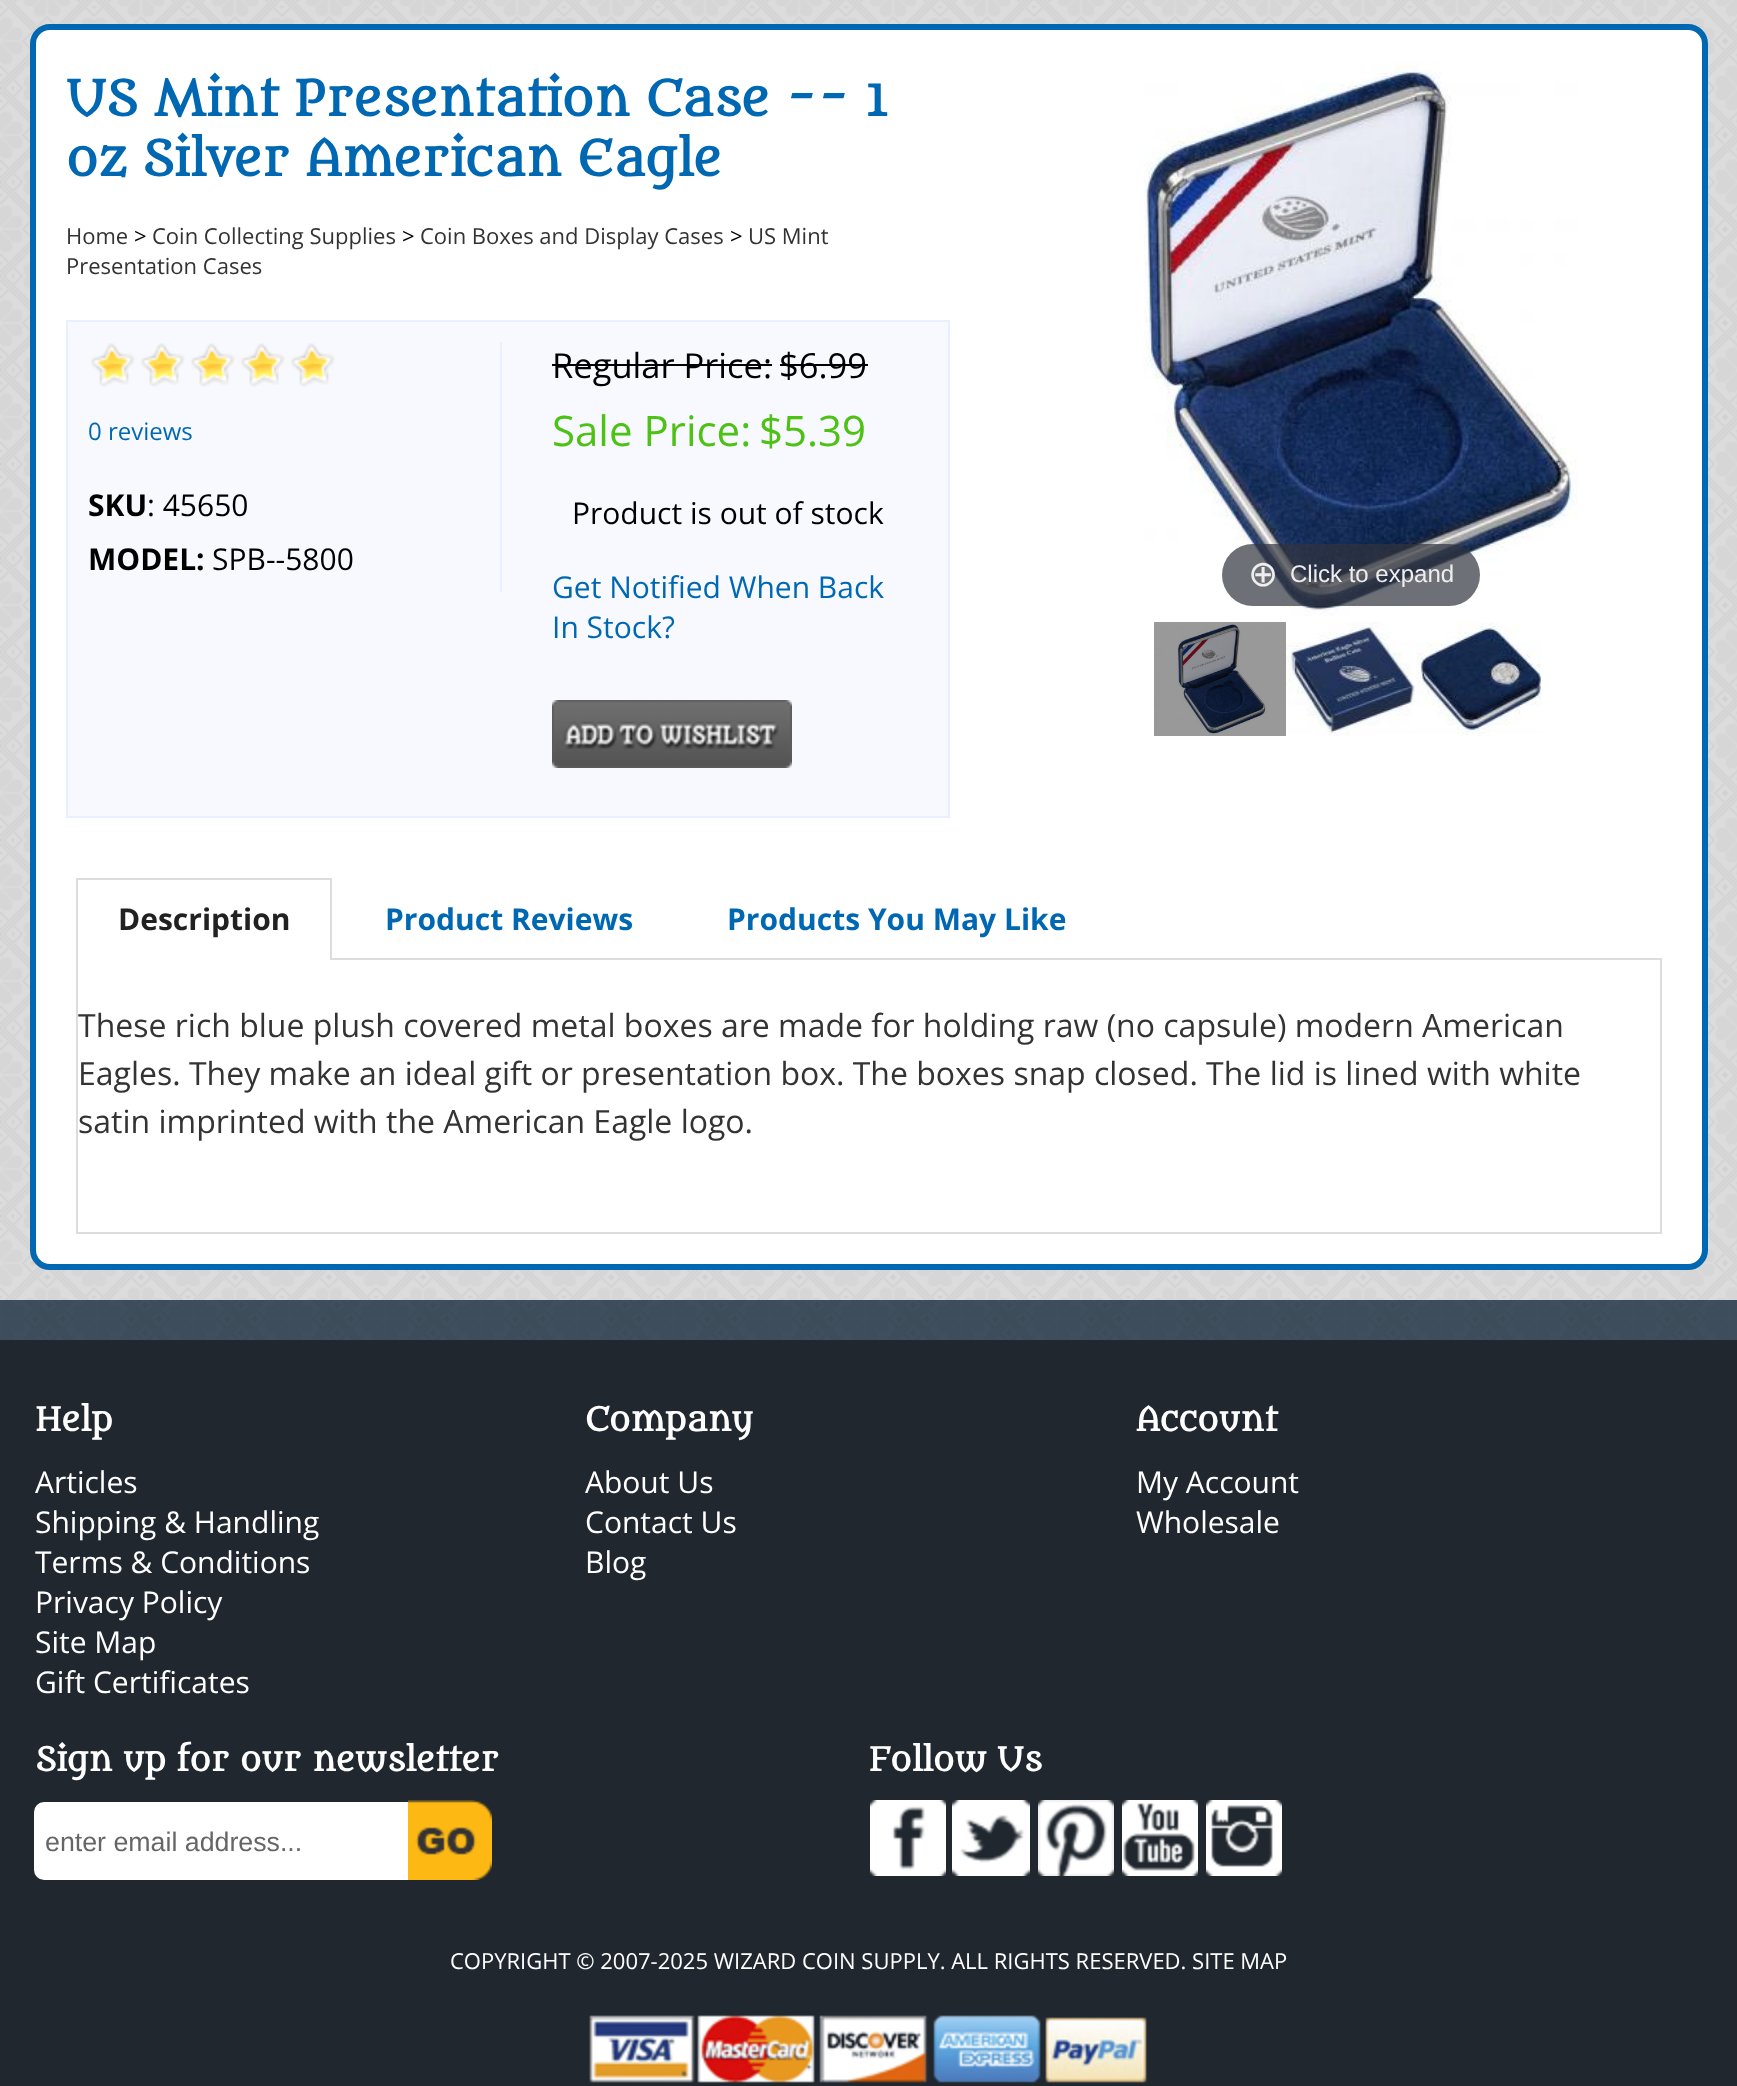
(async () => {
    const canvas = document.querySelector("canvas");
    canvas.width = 1737;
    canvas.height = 2086;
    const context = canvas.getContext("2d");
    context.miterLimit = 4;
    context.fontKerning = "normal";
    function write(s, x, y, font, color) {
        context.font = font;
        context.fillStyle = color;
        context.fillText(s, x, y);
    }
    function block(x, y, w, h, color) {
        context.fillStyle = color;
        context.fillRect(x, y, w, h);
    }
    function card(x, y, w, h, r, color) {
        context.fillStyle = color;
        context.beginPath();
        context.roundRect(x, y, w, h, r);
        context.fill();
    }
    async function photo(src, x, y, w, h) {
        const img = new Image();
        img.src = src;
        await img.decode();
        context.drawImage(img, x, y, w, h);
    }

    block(0, 0, 1737, 2086, "rgb(255, 255, 255)");
    await photo("media/1.png", 0, 1300, 1737, 40);
    await photo("media/2.png", 0, 0, 1737, 1300);
    context.beginPath();
    context.roundRect(33, 27, 1672, 1240, 17);
    context.fill();
    context.strokeStyle = "rgb(0, 104, 179)";
    context.lineWidth = 6;
    context.stroke();
    write("US Mint Presentation Case -- 1", 66, 116, "bold 48px Metamorphous", "rgb(0, 104, 179)");
    write("oz Silver American Eagle", 66, 176, "bold 48px Metamorphous", "rgb(0, 104, 179)");
    write("Home", 66, 244, "22px Open Sans", "rgb(51, 51, 51)");
    write(">", 134, 244, "22px Open Sans", "rgb(0, 0, 0)");
    write("Coin Collecting Supplies", 152, 244, "22px Open Sans", "rgb(51, 51, 51)");
    write(">", 402, 244, "22px Open Sans", "rgb(0, 0, 0)");
    write("Coin Boxes and Display Cases", 420, 244, "22px Open Sans", "rgb(51, 51, 51)");
    write(">", 730, 244, "22px Open Sans", "rgb(0, 0, 0)");
    write("US Mint", 748, 244, "22px Open Sans", "rgb(51, 51, 51)");
    write("Presentation Cases", 66, 274, "22px Open Sans", "rgb(51, 51, 51)");
    context.fillStyle = "rgb(247, 249, 255)";
    context.beginPath();
    context.rect(67, 321, 882, 496);
    context.fill();
    context.strokeStyle = "rgb(232, 239, 254)";
    context.lineWidth = 2;
    context.stroke();
    block(500, 342, 2, 250, "rgb(232, 239, 254)");
    await photo("media/3.png", 90, 345, 246, 42);
    await photo("media/4.png", 91, 343, 244, 41);
    write("0 reviews", 88, 440, "24px Open Sans", "rgb(0, 104, 179)");
    write("SKU", 88, 516, "bold 30px Open Sans", "rgb(0, 0, 0)");
    write(": 45650", 147, 516, "30px Open Sans", "rgb(0, 0, 0)");
    write("MODEL:", 88, 570, "bold 30px Open Sans", "rgb(0, 0, 0)");
    write("SPB--5800", 212, 570, "30px Open Sans", "rgb(0, 0, 0)");
    write("Regular Price:", 552, 378, "34.5px Open Sans", "rgb(0, 0, 0)");
    block(552, 364, 220, 2, "rgb(0, 0, 0)");
    write("$6.99", 779, 378, "34.5px Open Sans", "rgb(0, 0, 0)");
    block(780, 364, 88, 2, "rgb(0, 0, 0)");
    write("Sale Price:", 552, 446, "42px Open Sans", "rgb(78, 193, 21)");
    write("$5.39", 759, 446, "42px Open Sans", "rgb(78, 193, 21)");
    write("Product is out of stock", 572, 524, "30px Open Sans", "rgb(0, 0, 0)");
    write("Get Notified When Back", 552, 598, "30px Open Sans", "rgb(0, 104, 179)");
    write("In Stock?", 552, 638, "30px Open Sans", "rgb(0, 104, 179)");
    await photo("media/5.png", 552, 700, 240, 68);
    await photo("media/6.png", 1144, 62, 434, 554);
    card(1222, 544, 258, 62, 31, "rgba(49, 51, 61, 0.7)");
    write("⊕", 1248, 586, "36px DejaVu Sans", "rgb(238, 238, 238)");
    write("Click to expand", 1290, 582, "24px Liberation Sans", "rgb(238, 238, 238)");
    await photo("media/7.png", 1154, 622, 132, 114);
    await photo("media/8.png", 1286, 622, 130, 114);
    await photo("media/9.png", 1416, 622, 126, 114);
    block(332, 958, 1330, 2, "rgb(221, 221, 221)");
    block(76, 878, 256, 2, "rgb(221, 221, 221)");
    block(330, 878, 2, 82, "rgb(221, 221, 221)");
    block(76, 878, 2, 82, "rgb(221, 221, 221)");
    write("Description", 118, 930, "bold 30px Open Sans", "rgb(33, 33, 33)");
    write("Product Reviews", 385, 930, "bold 30px Open Sans", "rgb(0, 104, 179)");
    write("Products You May Like", 727, 930, "bold 30px Open Sans", "rgb(0, 104, 179)");
    block(1660, 960, 2, 274, "rgb(221, 221, 221)");
    block(76, 1232, 1586, 2, "rgb(221, 221, 221)");
    block(76, 960, 2, 274, "rgb(221, 221, 221)");
    write("These rich blue plush covered metal boxes are made for holding raw (no capsule) modern American", 78, 1037, "32px Open Sans", "rgb(51, 51, 51)");
    write("Eagles. They make an ideal gift or presentation box. The boxes snap closed. The lid is lined with white", 78, 1085, "32px Open Sans", "rgb(51, 51, 51)");
    write("satin imprinted with the American Eagle logo.", 78, 1133, "32px Open Sans", "rgb(51, 51, 51)");
    block(0, 1340, 1737, 746, "rgb(32, 39, 46)");
    write("Help", 35, 1431, "bold 32px Metamorphous", "rgb(255, 255, 255)");
    write("Articles", 35, 1493, "30px Open Sans", "rgb(255, 255, 255)");
    write("Shipping & Handling", 35, 1533, "30px Open Sans", "rgb(255, 255, 255)");
    write("Terms & Conditions", 35, 1573, "30px Open Sans", "rgb(255, 255, 255)");
    write("Privacy Policy", 35, 1613, "30px Open Sans", "rgb(255, 255, 255)");
    write("Site Map", 35, 1653, "30px Open Sans", "rgb(255, 255, 255)");
    write("Gift Certificates", 35, 1693, "30px Open Sans", "rgb(255, 255, 255)");
    write("Company", 585, 1431, "bold 32px Metamorphous", "rgb(255, 255, 255)");
    write("About Us", 585, 1493, "30px Open Sans", "rgb(255, 255, 255)");
    write("Contact Us", 585, 1533, "30px Open Sans", "rgb(255, 255, 255)");
    write("Blog", 585, 1573, "30px Open Sans", "rgb(255, 255, 255)");
    write("Account", 1136, 1431, "bold 32px Metamorphous", "rgb(255, 255, 255)");
    write("My Account", 1136, 1493, "30px Open Sans", "rgb(255, 255, 255)");
    write("Wholesale", 1136, 1533, "30px Open Sans", "rgb(255, 255, 255)");
    write("Sign up for our newsletter", 35, 1771, "bold 32px Metamorphous", "rgb(255, 255, 255)");
    context.beginPath();
    context.roundRect(34, 1802, 374, 78, [10, 0, 0, 10]);
    context.fill();
    write("enter email address...", 45, 1851, "26.75px Liberation Sans", "rgb(102, 102, 102)");
    await photo("media/10.png", 408, 1800, 84, 80);
    write("Follow Us", 869, 1771, "bold 32px Metamorphous", "rgb(255, 255, 255)");
    await photo("media/11.png", 870, 1800, 76, 76);
    await photo("media/12.png", 952, 1800, 78, 76);
    await photo("media/13.png", 1038, 1800, 76, 76);
    await photo("media/14.png", 1122, 1800, 76, 76);
    await photo("media/15.png", 1206, 1800, 76, 76);
    write("COPYRIGHT © 2007-2025 WIZARD COIN SUPPLY. ALL RIGHTS RESERVED. SITE MAP", 450, 1969, "22px Open Sans", "rgb(255, 255, 255)");
    await photo("media/16.png", 589, 2015, 558, 68);
})();
